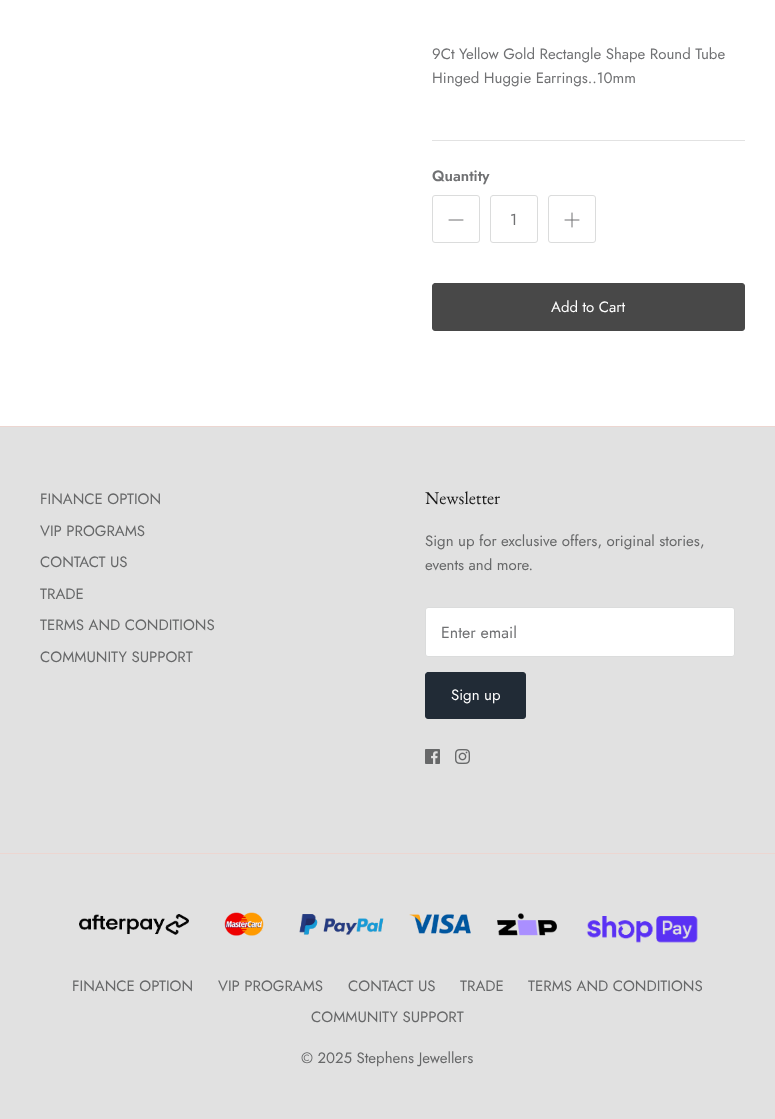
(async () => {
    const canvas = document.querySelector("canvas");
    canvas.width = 775;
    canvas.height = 1119;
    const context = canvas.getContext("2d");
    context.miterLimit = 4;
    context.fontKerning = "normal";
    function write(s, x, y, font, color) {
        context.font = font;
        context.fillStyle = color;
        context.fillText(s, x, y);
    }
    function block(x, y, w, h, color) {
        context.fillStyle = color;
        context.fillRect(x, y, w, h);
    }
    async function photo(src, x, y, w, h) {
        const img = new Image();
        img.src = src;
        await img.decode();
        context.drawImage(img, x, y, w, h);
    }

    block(0, 0, 775, 1119, "rgb(255, 255, 255)");
    write("9Ct Yellow Gold Rectangle Shape Round Tube", 432, 59, "15px Jost", "rgb(112, 113, 115)");
    write("Hinged Huggie Earrings..10mm", 432, 83, "15px Jost", "rgb(112, 113, 115)");
    block(432, 140, 313, 1, "rgb(226, 226, 226)");
    write("Quantity", 432, 181, "600 15px Jost", "rgb(112, 113, 115)");
    context.beginPath();
    context.roundRect(432.5, 195.5, 47, 47, 2.5);
    context.strokeStyle = "rgb(219, 220, 220)";
    context.stroke();
    context.beginPath();
    context.moveTo(449, 220);
    context.lineTo(463, 220);
    context.strokeStyle = "rgb(112, 113, 115)";
    context.lineCap = "round";
    context.lineJoin = "round";
    context.stroke();
    context.beginPath();
    context.roundRect(490.5, 195.5, 47, 47, 2.5);
    context.strokeStyle = "rgb(219, 220, 220)";
    context.lineJoin = "miter";
    context.stroke();
    write("1", 510, 225, "16px Jost", "rgb(112, 113, 115)");
    context.beginPath();
    context.roundRect(548.5, 195.5, 47, 47, 2.5);
    context.stroke();
    context.beginPath();
    context.moveTo(572, 213);
    context.lineTo(572, 227);
    context.moveTo(565, 220);
    context.lineTo(579, 220);
    context.strokeStyle = "rgb(112, 113, 115)";
    context.lineJoin = "round";
    context.stroke();
    context.fillStyle = "rgb(72, 72, 72)";
    context.beginPath();
    context.roundRect(432.5, 283.5, 312, 47, 2.5);
    context.fill();
    context.strokeStyle = "rgb(72, 72, 72)";
    context.lineJoin = "miter";
    context.stroke();
    write("Add to Cart", 551, 312, "15px Jost", "rgb(255, 255, 255)");
    block(0, 427, 775, 692, "rgb(225, 225, 225)");
    block(0, 426, 775, 1, "rgb(236, 214, 209)");
    write("FINANCE OPTION", 40, 504, "15px Jost", "rgb(103, 104, 105)");
    write("VIP PROGRAMS", 40, 536, "15px Jost", "rgb(103, 104, 105)");
    write("CONTACT US", 40, 567, "15px Jost", "rgb(103, 104, 105)");
    write("TRADE", 40, 599, "15px Jost", "rgb(103, 104, 105)");
    write("TERMS AND CONDITIONS", 40, 630, "15px Jost", "rgb(103, 104, 105)");
    write("COMMUNITY SUPPORT", 40, 662, "15px Jost", "rgb(103, 104, 105)");
    write("Newsletter", 425, 504, "18px EB Garamond", "rgb(23, 23, 23)");
    write("Sign up for exclusive offers, original stories,", 425, 546, "15px Jost", "rgb(103, 104, 105)");
    write("events and more.", 425, 570, "15px Jost", "rgb(103, 104, 105)");
    context.fillStyle = "rgb(255, 255, 255)";
    context.beginPath();
    context.roundRect(425.5, 607.5, 309, 49, 2.5);
    context.fill();
    context.strokeStyle = "rgb(219, 220, 220)";
    context.stroke();
    write("Enter email", 441, 638, "16px Jost", "rgb(112, 113, 115)");
    context.fillStyle = "rgb(33, 43, 54)";
    context.beginPath();
    context.roundRect(425.5, 672.5, 100, 46, 2.5);
    context.fill();
    context.strokeStyle = "rgb(33, 43, 54)";
    context.stroke();
    write("Sign up", 451, 700, "15px Jost", "rgb(255, 255, 255)");
    await photo("media/1.png", 425, 749, 15, 15);
    await photo("media/2.png", 455, 749, 15, 15);
    block(0, 853, 775, 1, "rgb(236, 214, 209)");
    await photo("media/3.png", 79, 914, 110, 21);
    await photo("media/4.png", 224, 912, 40, 24);
    await photo("media/5.png", 299, 914, 85, 21);
    await photo("media/6.png", 409, 914, 62, 20);
    await photo("media/7.png", 497, 913, 60, 23);
    await photo("media/8.png", 586, 916, 112, 27);
    write("FINANCE OPTION", 72, 991, "15px Jost", "rgb(103, 104, 105)");
    write("VIP PROGRAMS", 218, 991, "15px Jost", "rgb(103, 104, 105)");
    write("CONTACT US", 348, 991, "15px Jost", "rgb(103, 104, 105)");
    write("TRADE", 460, 991, "15px Jost", "rgb(103, 104, 105)");
    write("TERMS AND CONDITIONS", 528, 991, "15px Jost", "rgb(103, 104, 105)");
    write("COMMUNITY SUPPORT", 311, 1022, "15px Jost", "rgb(103, 104, 105)");
    write("© 2025 Stephens Jewellers", 301, 1063, "15px Jost", "rgb(103, 104, 105)");
})();
